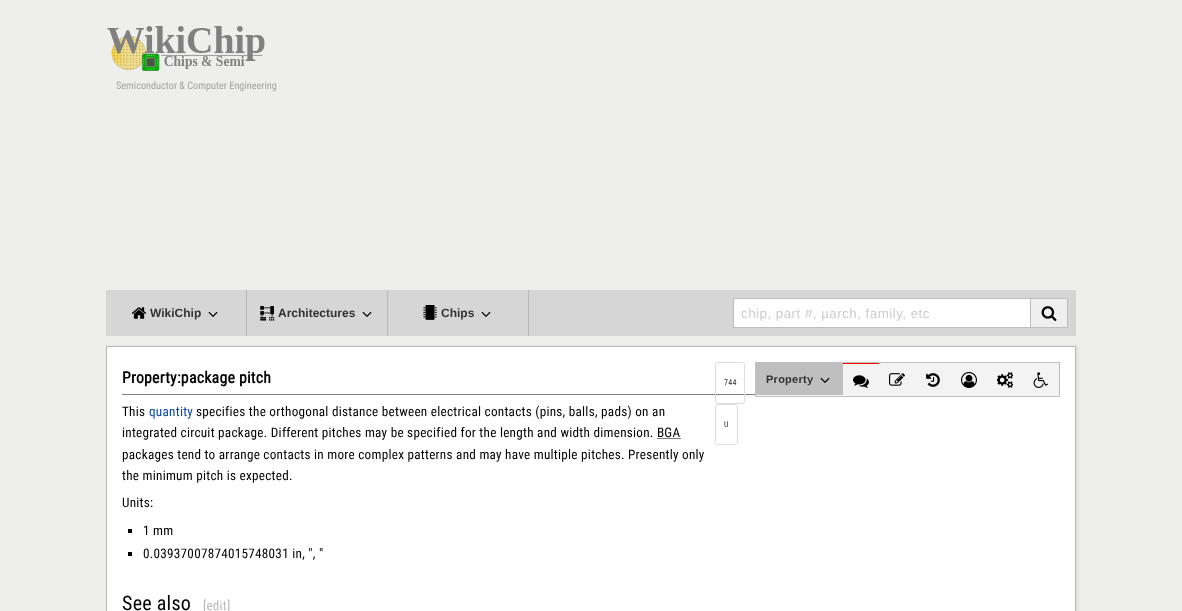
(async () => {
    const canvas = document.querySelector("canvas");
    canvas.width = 1182;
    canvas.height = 611;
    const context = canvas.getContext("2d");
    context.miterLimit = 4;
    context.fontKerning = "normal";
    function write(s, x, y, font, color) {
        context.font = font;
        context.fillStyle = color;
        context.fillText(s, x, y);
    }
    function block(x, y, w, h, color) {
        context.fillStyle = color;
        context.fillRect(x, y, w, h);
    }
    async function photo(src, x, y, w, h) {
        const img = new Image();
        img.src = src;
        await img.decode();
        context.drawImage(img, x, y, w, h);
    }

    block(0, 0, 1182, 611, "rgb(238, 238, 237)");
    await photo("media/1.png", 107, 26, 158, 45);
    write("Semiconductor & Computer Engineering", 116, 89, "10.25px Roboto Condensed", "rgb(163, 163, 163)");
    block(106, 290, 970, 46, "rgb(214, 214, 214)");
    block(246, 290, 1, 46, "rgb(183, 183, 183)");
    await photo("media/2.png", 131, 307, 16, 12);
    write("WikiChip", 150, 317, "bold 12px Liberation Sans", "rgb(51, 51, 51)");
    await photo("media/3.png", 208, 311, 10, 6);
    block(387, 290, 1, 46, "rgb(183, 183, 183)");
    await photo("media/4.png", 260, 306, 15, 15);
    write("Architectures", 278, 317, "bold 12px Liberation Sans", "rgb(51, 51, 51)");
    await photo("media/3.png", 362, 311, 10, 6);
    block(528, 290, 1, 46, "rgb(183, 183, 183)");
    await photo("media/5.png", 423, 305, 14, 15);
    write("Chips", 441, 317, "bold 12px Liberation Sans", "rgb(51, 51, 51)");
    await photo("media/3.png", 481, 311, 10, 6);
    block(734, 299, 296, 28, "rgb(255, 255, 255)");
    context.strokeStyle = "rgb(189, 189, 189)";
    context.strokeRect(733.5, 298.5, 299, 29);
    context.letterSpacing = "0.5px";
    write("chip, part #, µarch, family, etc", 741, 318, "13.3px Liberation Sans", "rgb(204, 204, 204)");
    context.fillStyle = "rgb(239, 239, 239)";
    context.beginPath();
    context.rect(1030.5, 298.5, 37, 29);
    context.fill();
    context.stroke();
    await photo("media/6.png", 1041, 306, 16, 15);
    context.fillStyle = "rgba(0, 0, 0, 0.07)";
    context.filter = "blur(1.5px)";
    context.beginPath();
    context.rect(108, 346, 970, 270);
    context.fill();
    context.filter = "none";
    context.fillStyle = "rgb(255, 255, 255)";
    context.beginPath();
    context.rect(106.5, 346.5, 969, 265);
    context.fill();
    context.strokeStyle = "rgb(183, 183, 183)";
    context.stroke();
    block(122, 394, 633, 1, "rgb(128, 128, 128)");
    context.letterSpacing = "0.26px";
    write("Property:package pitch", 122, 383, "bold 15.75px Roboto Condensed", "rgb(0, 0, 0)");
    context.beginPath();
    context.roundRect(715.5, 362.5, 29, 41, 2.5);
    context.strokeStyle = "rgb(221, 221, 221)";
    context.stroke();
    write("744", 724, 385, "8px Roboto Condensed", "rgb(41, 43, 44)");
    context.beginPath();
    context.roundRect(715.5, 404.5, 22, 40, 2.5);
    context.stroke();
    write("U", 724, 427, "8px Roboto Condensed", "rgb(41, 43, 44)");
    context.strokeStyle = "rgb(192, 192, 192)";
    context.strokeRect(755.5, 362.5, 304, 34);
    block(756, 363, 303, 33, "rgb(243, 243, 243)");
    block(756, 363, 87, 32, "rgb(191, 191, 191)");
    write("Property", 766, 383, "bold 11px Liberation Sans", "rgb(51, 51, 51)");
    await photo("media/7.png", 820, 377, 10, 6);
    block(843, 363, 36, 1, "rgb(255, 0, 0)");
    await photo("media/8.png", 853, 375, 16, 13);
    await photo("media/9.png", 889, 373, 16, 13);
    await photo("media/10.png", 926, 373, 14, 14);
    await photo("media/11.png", 961, 372, 16, 16);
    await photo("media/12.png", 997, 372, 16, 16);
    await photo("media/13.png", 1033, 372, 15, 16);
    write("This", 122, 416, "13.2px Roboto Condensed", "rgb(0, 0, 0)");
    write("quantity", 149, 416, "13.2px Roboto Condensed", "rgb(6, 69, 173)");
    write("specifies the orthogonal distance between electrical contacts (pins, balls, pads) on an", 196, 416, "13.2px Roboto Condensed", "rgb(0, 0, 0)");
    write("integrated circuit package. Different pitches may be specified for the length and width dimension. BGA", 122, 437, "13.2px Roboto Condensed", "rgb(0, 0, 0)");
    context.beginPath();
    context.moveTo(657.5, 438.5);
    context.lineTo(680.5, 438.5);
    context.strokeStyle = "rgb(0, 0, 0)";
    context.setLineDash([1, 1]);
    context.stroke();
    write("packages tend to arrange contacts in more complex patterns and may have multiple pitches. Presently only", 122, 459, "13.2px Roboto Condensed", "rgb(0, 0, 0)");
    write("the minimum pitch is expected.", 122, 480, "13.2px Roboto Condensed", "rgb(0, 0, 0)");
    write("Units:", 122, 507, "13.2px Roboto Condensed", "rgb(0, 0, 0)");
    block(128, 529, 4, 4, "rgb(0, 0, 0)");
    write("1 mm", 143, 535, "13.2px Roboto Condensed", "rgb(0, 0, 0)");
    block(128, 552, 4, 4, "rgb(0, 0, 0)");
    write("0.03937007874015748031 in, ″, \"", 143, 558, "13.2px Roboto Condensed", "rgb(0, 0, 0)");
    write("See also", 122, 610, "20px Roboto Condensed", "rgb(0, 0, 0)");
    write("[edit]", 203, 610, "13px Roboto Condensed", "rgb(184, 185, 186)");
})();
